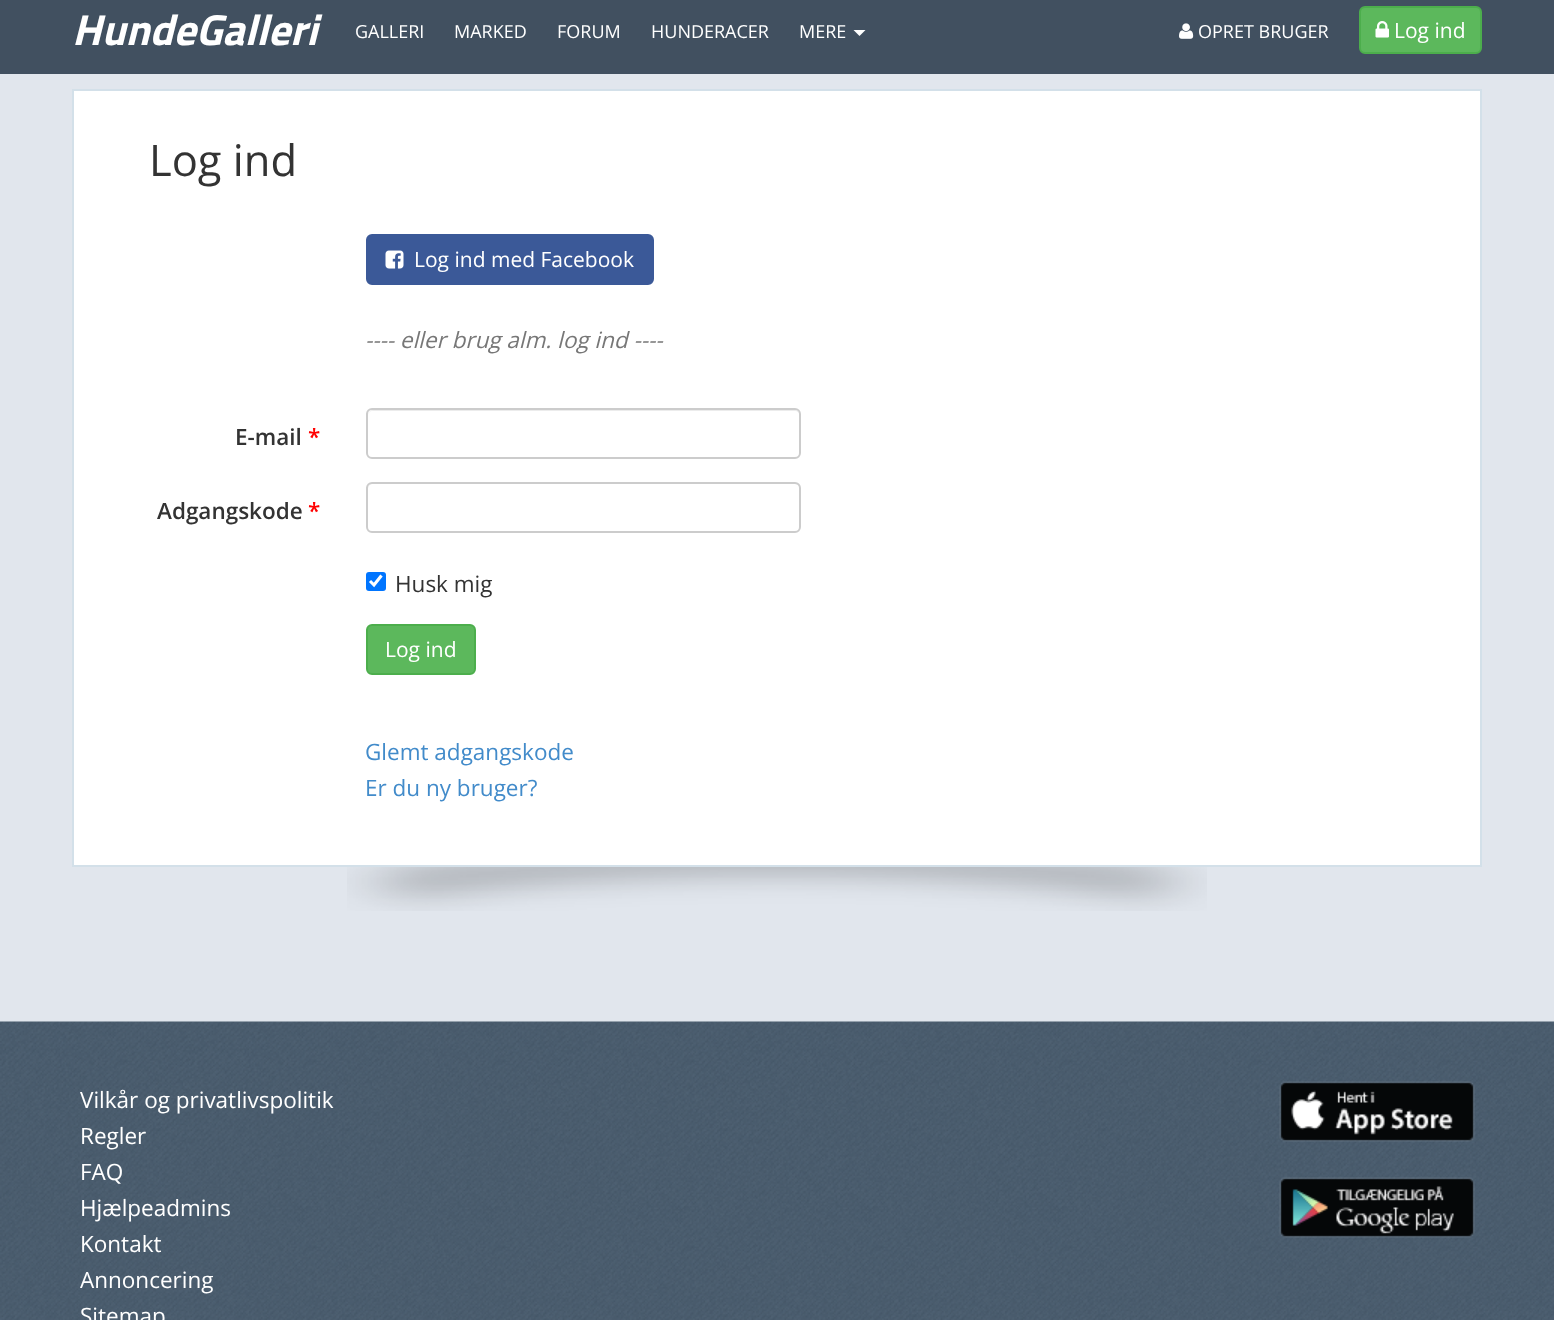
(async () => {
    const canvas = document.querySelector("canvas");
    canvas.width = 1554;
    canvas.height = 1320;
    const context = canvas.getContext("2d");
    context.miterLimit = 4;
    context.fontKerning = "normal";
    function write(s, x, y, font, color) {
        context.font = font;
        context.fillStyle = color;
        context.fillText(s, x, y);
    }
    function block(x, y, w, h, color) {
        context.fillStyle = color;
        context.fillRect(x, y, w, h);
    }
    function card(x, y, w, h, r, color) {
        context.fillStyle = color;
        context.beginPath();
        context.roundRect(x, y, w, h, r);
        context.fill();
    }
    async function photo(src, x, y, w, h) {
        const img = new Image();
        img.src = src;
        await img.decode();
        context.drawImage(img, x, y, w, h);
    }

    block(0, 0, 1554, 1320, "rgb(225, 230, 237)");
    block(0, 0, 1554, 74, "rgb(65, 80, 96)");
    write("HundeGalleri", 72, 45, "italic bold 43.5px Titillium Web", "rgb(255, 255, 255)");
    write("GALLERI", 355, 38, "18px Open Sans", "rgb(255, 255, 255)");
    write("MARKED", 454, 38, "18px Open Sans", "rgb(255, 255, 255)");
    write("FORUM", 557, 38, "18px Open Sans", "rgb(255, 255, 255)");
    write("HUNDERACER", 651, 38, "18px Open Sans", "rgb(255, 255, 255)");
    write("MERE", 799, 38, "18px Open Sans", "rgb(255, 255, 255)");
    context.beginPath();
    context.moveTo(853.5, 30);
    context.lineTo(865.5, 30);
    context.lineTo(859.5, 36);
    context.closePath();
    context.fill();
    await photo("media/1.png", 1179, 23, 15, 16);
    write("OPRET BRUGER", 1198, 38, "18px Open Sans", "rgb(255, 255, 255)");
    context.fillStyle = "rgb(92, 184, 92)";
    context.beginPath();
    context.roundRect(1360, 7, 121, 46, 5);
    context.fill();
    context.strokeStyle = "rgb(76, 174, 76)";
    context.lineWidth = 2;
    context.stroke();
    await photo("media/2.png", 1375, 21, 14, 17);
    write("Log ind", 1394, 38, "21px Open Sans", "rgb(255, 255, 255)");
    await photo("media/3.png", 347, 867, 860, 44);
    context.beginPath();
    context.rect(73, 90, 1408, 776);
    context.fill();
    context.strokeStyle = "rgb(211, 224, 233)";
    context.stroke();
    write("Log ind", 149, 176, "43.5px Open Sans", "rgb(51, 51, 51)");
    context.fillStyle = "rgb(59, 89, 152)";
    context.beginPath();
    context.roundRect(367, 235, 286, 49, 5);
    context.fill();
    context.strokeStyle = "rgb(59, 89, 152)";
    context.stroke();
    await photo("media/4.png", 385, 250, 19, 19);
    write("Log ind med Facebook", 414, 267, "21px Open Sans", "rgb(255, 255, 255)");
    write("---- eller brug alm. log ind ----", 365, 348, "italic 22.5px Open Sans", "rgb(119, 119, 119)");
    write("E-mail", 235, 445, "600 22.5px Open Sans", "rgb(51, 51, 51)");
    write("*", 308, 445, "600 22.5px Open Sans", "rgb(255, 0, 0)");
    context.fillStyle = "rgb(236, 236, 236)";
    context.beginPath();
    context.moveTo(372, 411);
    context.lineTo(795, 411);
    context.bezierCurveTo(797, 411, 800, 413, 800, 416);
    context.bezierCurveTo(800, 413, 798, 410, 795, 410);
    context.lineTo(373, 410);
    context.bezierCurveTo(370, 410, 368, 413, 368, 416);
    context.bezierCurveTo(368, 413, 370, 411, 372, 411);
    context.closePath();
    context.fill();
    context.beginPath();
    context.roundRect(367, 409, 433, 49, 5);
    context.strokeStyle = "rgb(204, 204, 204)";
    context.stroke();
    write("Adgangskode", 157, 519, "600 22.5px Open Sans", "rgb(51, 51, 51)");
    write("*", 308, 519, "600 22.5px Open Sans", "rgb(255, 0, 0)");
    context.fillStyle = "rgb(236, 236, 236)";
    context.beginPath();
    context.moveTo(372, 484);
    context.lineTo(795, 484);
    context.bezierCurveTo(797, 484, 800, 487, 800, 489);
    context.bezierCurveTo(800, 486, 798, 483, 795, 483);
    context.lineTo(373, 483);
    context.bezierCurveTo(370, 483, 368, 486, 368, 489);
    context.bezierCurveTo(368, 487, 370, 484, 372, 484);
    context.closePath();
    context.fill();
    context.beginPath();
    context.roundRect(367, 483, 433, 49, 5);
    context.stroke();
    card(366, 572, 20, 19, 3, "rgb(0, 117, 255)");
    context.beginPath();
    context.moveTo(370, 581);
    context.lineTo(374, 585);
    context.lineTo(381.5, 575.5);
    context.strokeStyle = "rgb(255, 255, 255)";
    context.lineWidth = 3.1;
    context.stroke();
    write("Husk mig", 395, 592, "22.5px Open Sans", "rgb(51, 51, 51)");
    context.fillStyle = "rgb(92, 184, 92)";
    context.beginPath();
    context.roundRect(367, 625, 108, 49, 5);
    context.fill();
    context.strokeStyle = "rgb(76, 174, 76)";
    context.lineWidth = 2;
    context.stroke();
    write("Log ind", 385, 657, "21px Open Sans", "rgb(255, 255, 255)");
    write("Glemt adgangskode", 365, 760, "22.5px Open Sans", "rgb(66, 139, 202)");
    write("Er du ny bruger?", 365, 796, "22.5px Open Sans", "rgb(66, 139, 202)");
    await photo("media/5.png", 0, 1021, 1554, 299);
    write("Vilkår og privatlivspolitik", 80, 1108, "22.5px Open Sans", "rgb(255, 255, 255)");
    write("Regler", 80, 1144, "22.5px Open Sans", "rgb(255, 255, 255)");
    write("FAQ", 80, 1180, "22.5px Open Sans", "rgb(255, 255, 255)");
    write("Hjælpeadmins", 80, 1216, "22.5px Open Sans", "rgb(255, 255, 255)");
    write("Kontakt", 80, 1252, "22.5px Open Sans", "rgb(255, 255, 255)");
    write("Annoncering", 80, 1288, "22.5px Open Sans", "rgb(255, 255, 255)");
    write("Sitemap", 80, 1324, "22.5px Open Sans", "rgb(255, 255, 255)");
    await photo("media/6.png", 1279, 1081, 196, 61);
    await photo("media/7.png", 1279, 1177, 196, 61);
})();
